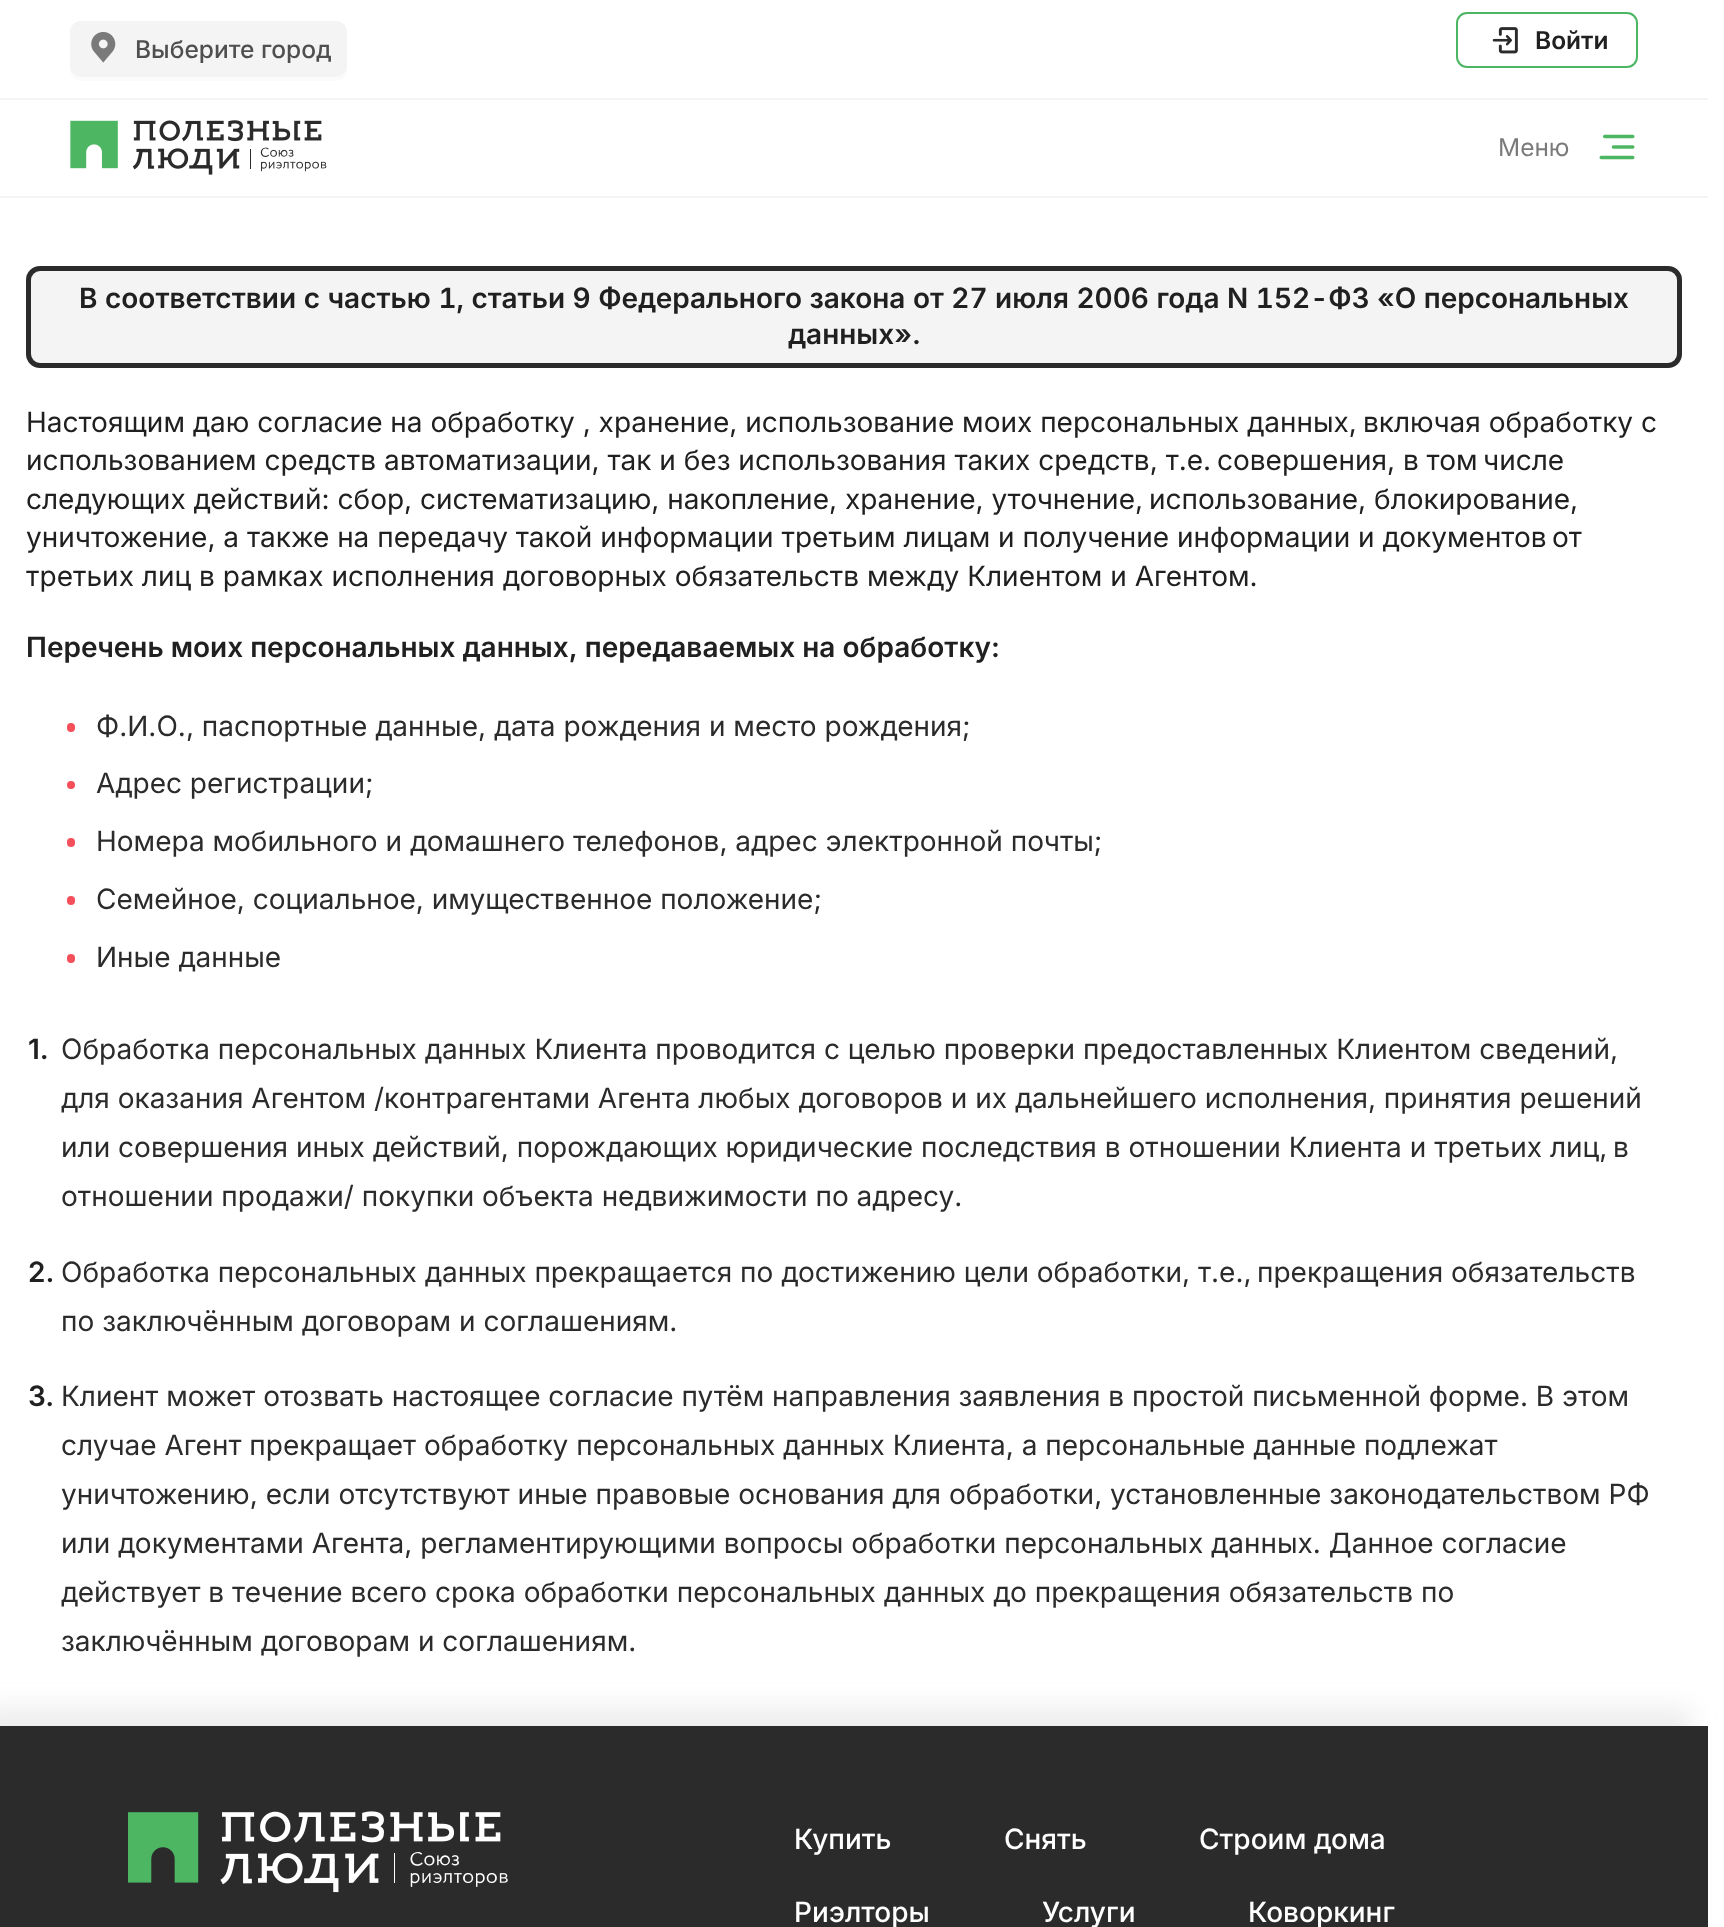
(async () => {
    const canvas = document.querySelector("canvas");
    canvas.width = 1724;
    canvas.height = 1927;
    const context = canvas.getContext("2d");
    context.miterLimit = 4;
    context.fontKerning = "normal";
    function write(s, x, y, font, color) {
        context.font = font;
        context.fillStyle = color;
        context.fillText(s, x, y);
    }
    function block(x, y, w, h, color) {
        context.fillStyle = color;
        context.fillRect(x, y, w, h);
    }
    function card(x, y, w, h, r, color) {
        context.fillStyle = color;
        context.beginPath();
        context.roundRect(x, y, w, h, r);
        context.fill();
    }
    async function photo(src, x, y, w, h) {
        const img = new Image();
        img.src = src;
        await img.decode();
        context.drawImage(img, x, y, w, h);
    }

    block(0, 0, 1724, 1927, "rgb(255, 255, 255)");
    context.fillStyle = "rgb(251, 251, 251)";
    context.beginPath();
    context.moveTo(70, 66);
    context.lineTo(70, 70);
    context.bezierCurveTo(70, 76, 75, 81, 81, 81);
    context.lineTo(336, 81);
    context.bezierCurveTo(342, 81, 347, 76, 347, 70);
    context.lineTo(347, 36);
    context.lineTo(346, 33);
    context.lineTo(346, 66);
    context.bezierCurveTo(346, 72, 342, 77, 336, 77);
    context.lineTo(80, 77);
    context.bezierCurveTo(75, 77, 70, 72, 70, 66);
    context.closePath();
    context.fill();
    context.fillStyle = "rgb(244, 244, 244)";
    context.beginPath();
    context.roundRect(71, 22, 275, 54, 10);
    context.fill();
    context.strokeStyle = "rgb(244, 244, 244)";
    context.lineWidth = 2;
    context.stroke();
    await photo("media/1.png", 91, 31, 25, 32);
    write("Выберите город", 135, 58, "500 24.5px Inter", "rgb(79, 79, 79)");
    context.beginPath();
    context.roundRect(1457, 13, 180, 54, 10);
    context.strokeStyle = "rgb(77, 182, 99)";
    context.stroke();
    await photo("media/2.png", 1492, 27, 26, 27);
    write("Войти", 1535, 49, "600 24.5px Inter", "rgb(32, 32, 32)");
    await photo("media/3.png", 70, 120, 257, 55);
    write("Меню", 1498, 156, "24.5px Inter", "rgb(122, 122, 122)");
    await photo("media/4.png", 1599, 134, 36, 26);
    block(0, 98, 1708, 2, "rgb(244, 244, 244)");
    block(0, 196, 1708, 2, "rgb(244, 244, 244)");
    context.beginPath();
    context.roundRect(28.5, 268.5, 1651, 97, 11.5);
    context.fill();
    context.strokeStyle = "rgb(43, 43, 43)";
    context.lineWidth = 5;
    context.stroke();
    write("В соответствии с частью 1, статьи 9 Федерального закона от 27 июля 2006 года N 152-ФЗ «О персональных", 79, 308, "600 28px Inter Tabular", "rgb(32, 32, 32)");
    write("данных».", 788, 344, "600 28px Inter", "rgb(32, 32, 32)");
    write("Настоящим даю согласие на обработку , хранение, использование моих персональных данных,", 26, 432, "28px Inter", "rgb(32, 32, 32)");
    write("включая обработку с", 1363, 432, "28px Inter", "rgb(32, 32, 32)");
    write("использованием средств автоматизации, так и без использования таких средств, т.е.", 26, 470, "28px Inter", "rgb(32, 32, 32)");
    write("совершения, в том", 1217, 470, "28px Inter", "rgb(32, 32, 32)");
    write("числе", 1483, 470, "28px Inter", "rgb(32, 32, 32)");
    write("следующих действий: сбор, систематизацию, накопление, хранение, уточнение,", 26, 509, "28px Inter", "rgb(32, 32, 32)");
    write("использование, блокирование,", 1149, 509, "28px Inter", "rgb(32, 32, 32)");
    write("уничтожение, а также на передачу такой информации третьим лицам и получение информации и документов", 26, 547, "28px Inter", "rgb(32, 32, 32)");
    write("от", 1552, 547, "28px Inter", "rgb(32, 32, 32)");
    write("третьих лиц в рамках исполнения договорных обязательств между Клиентом и Агентом.", 26, 586, "28px Inter", "rgb(32, 32, 32)");
    write("Перечень моих персональных данных, передаваемых на обработку:", 26, 657, "600 28px Inter", "rgb(32, 32, 32)");
    card(67, 723, 8, 9, 4, "rgb(244, 79, 90)");
    write("Ф.И.О., паспортные данные, дата рождения и место рождения;", 96, 736, "28px Inter", "rgb(43, 43, 43)");
    context.fillStyle = "rgb(244, 79, 90)";
    context.beginPath();
    context.arc(71, 785, 4, 0, Math.PI * 2);
    context.fill();
    write("Адрес регистрации;", 96, 793, "28px Inter", "rgb(43, 43, 43)");
    card(67, 838, 8, 9, 4, "rgb(244, 79, 90)");
    write("Номера мобильного и домашнего телефонов, адрес электронной почты;", 96, 851, "28px Inter", "rgb(43, 43, 43)");
    card(67, 896, 8, 9, 4, "rgb(244, 79, 90)");
    write("Семейное, социальное, имущественное положение;", 96, 909, "28px Inter", "rgb(43, 43, 43)");
    card(67, 954, 8, 9, 4, "rgb(244, 79, 90)");
    write("Иные данные", 96, 967, "28px Inter", "rgb(43, 43, 43)");
    write("1.", 28, 1059, "600 28px Inter", "rgb(32, 32, 32)");
    write("Обработка персональных данных Клиента проводится с целью проверки предоставленных Клиентом сведений,", 61, 1059, "28px Inter", "rgb(43, 43, 43)");
    write("для оказания Агентом /контрагентами Агента любых договоров и их дальнейшего исполнения, принятия решений", 61, 1108, "28px Inter", "rgb(43, 43, 43)");
    write("или совершения иных действий, порождающих юридические последствия в отношении Клиента и третьих лиц,", 61, 1157, "28px Inter", "rgb(43, 43, 43)");
    write("в", 1613, 1157, "28px Inter", "rgb(43, 43, 43)");
    write("отношении продажи/ покупки объекта недвижимости по адресу.", 61, 1206, "28px Inter", "rgb(43, 43, 43)");
    write("2.", 28, 1282, "600 28px Inter", "rgb(32, 32, 32)");
    write("Обработка персональных данных прекращается по достижению цели обработки, т.е.,", 61, 1282, "28px Inter", "rgb(43, 43, 43)");
    write("прекращения обязательств", 1257, 1282, "28px Inter", "rgb(43, 43, 43)");
    write("по заключённым договорам и соглашениям.", 61, 1331, "28px Inter", "rgb(43, 43, 43)");
    write("3.", 28, 1406, "600 28px Inter", "rgb(32, 32, 32)");
    write("Клиент может отозвать настоящее согласие путём направления заявления в простой письменной форме. В этом", 61, 1406, "28px Inter", "rgb(43, 43, 43)");
    write("случае Агент прекращает обработку персональных данных Клиента, а персональные данные подлежат", 61, 1455, "28px Inter", "rgb(43, 43, 43)");
    write("уничтожению, если отсутствуют иные правовые основания для обработки, установленные законодательством РФ", 61, 1504, "28px Inter", "rgb(43, 43, 43)");
    write("или документами Агента, регламентирующими вопросы обработки персональных данных. Данное согласие", 61, 1553, "28px Inter", "rgb(43, 43, 43)");
    write("действует в течение всего срока обработки персональных данных до прекращения обязательств по", 61, 1602, "28px Inter", "rgb(43, 43, 43)");
    write("заключённым договорам и соглашениям.", 61, 1651, "28px Inter", "rgb(43, 43, 43)");
    context.fillStyle = "rgba(140, 140, 140, 0.17)";
    context.filter = "blur(13px)";
    context.beginPath();
    context.rect(-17, 1708, 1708, 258);
    context.fill();
    context.filter = "none";
    block(0, 1726, 1708, 201, "rgb(43, 43, 43)");
    await photo("media/5.png", 128, 1811, 380, 82);
    write("Купить", 794, 1849, "500 28px Inter", "rgb(255, 255, 255)");
    write("Снять", 1004, 1849, "500 28px Inter", "rgb(255, 255, 255)");
    write("Строим дома", 1199, 1849, "500 28px Inter", "rgb(255, 255, 255)");
    write("Риэлторы", 794, 1922, "500 28px Inter", "rgb(255, 255, 255)");
    write("Услуги", 1042, 1922, "500 28px Inter", "rgb(255, 255, 255)");
    write("Коворкинг", 1248, 1922, "500 28px Inter", "rgb(255, 255, 255)");
})();
